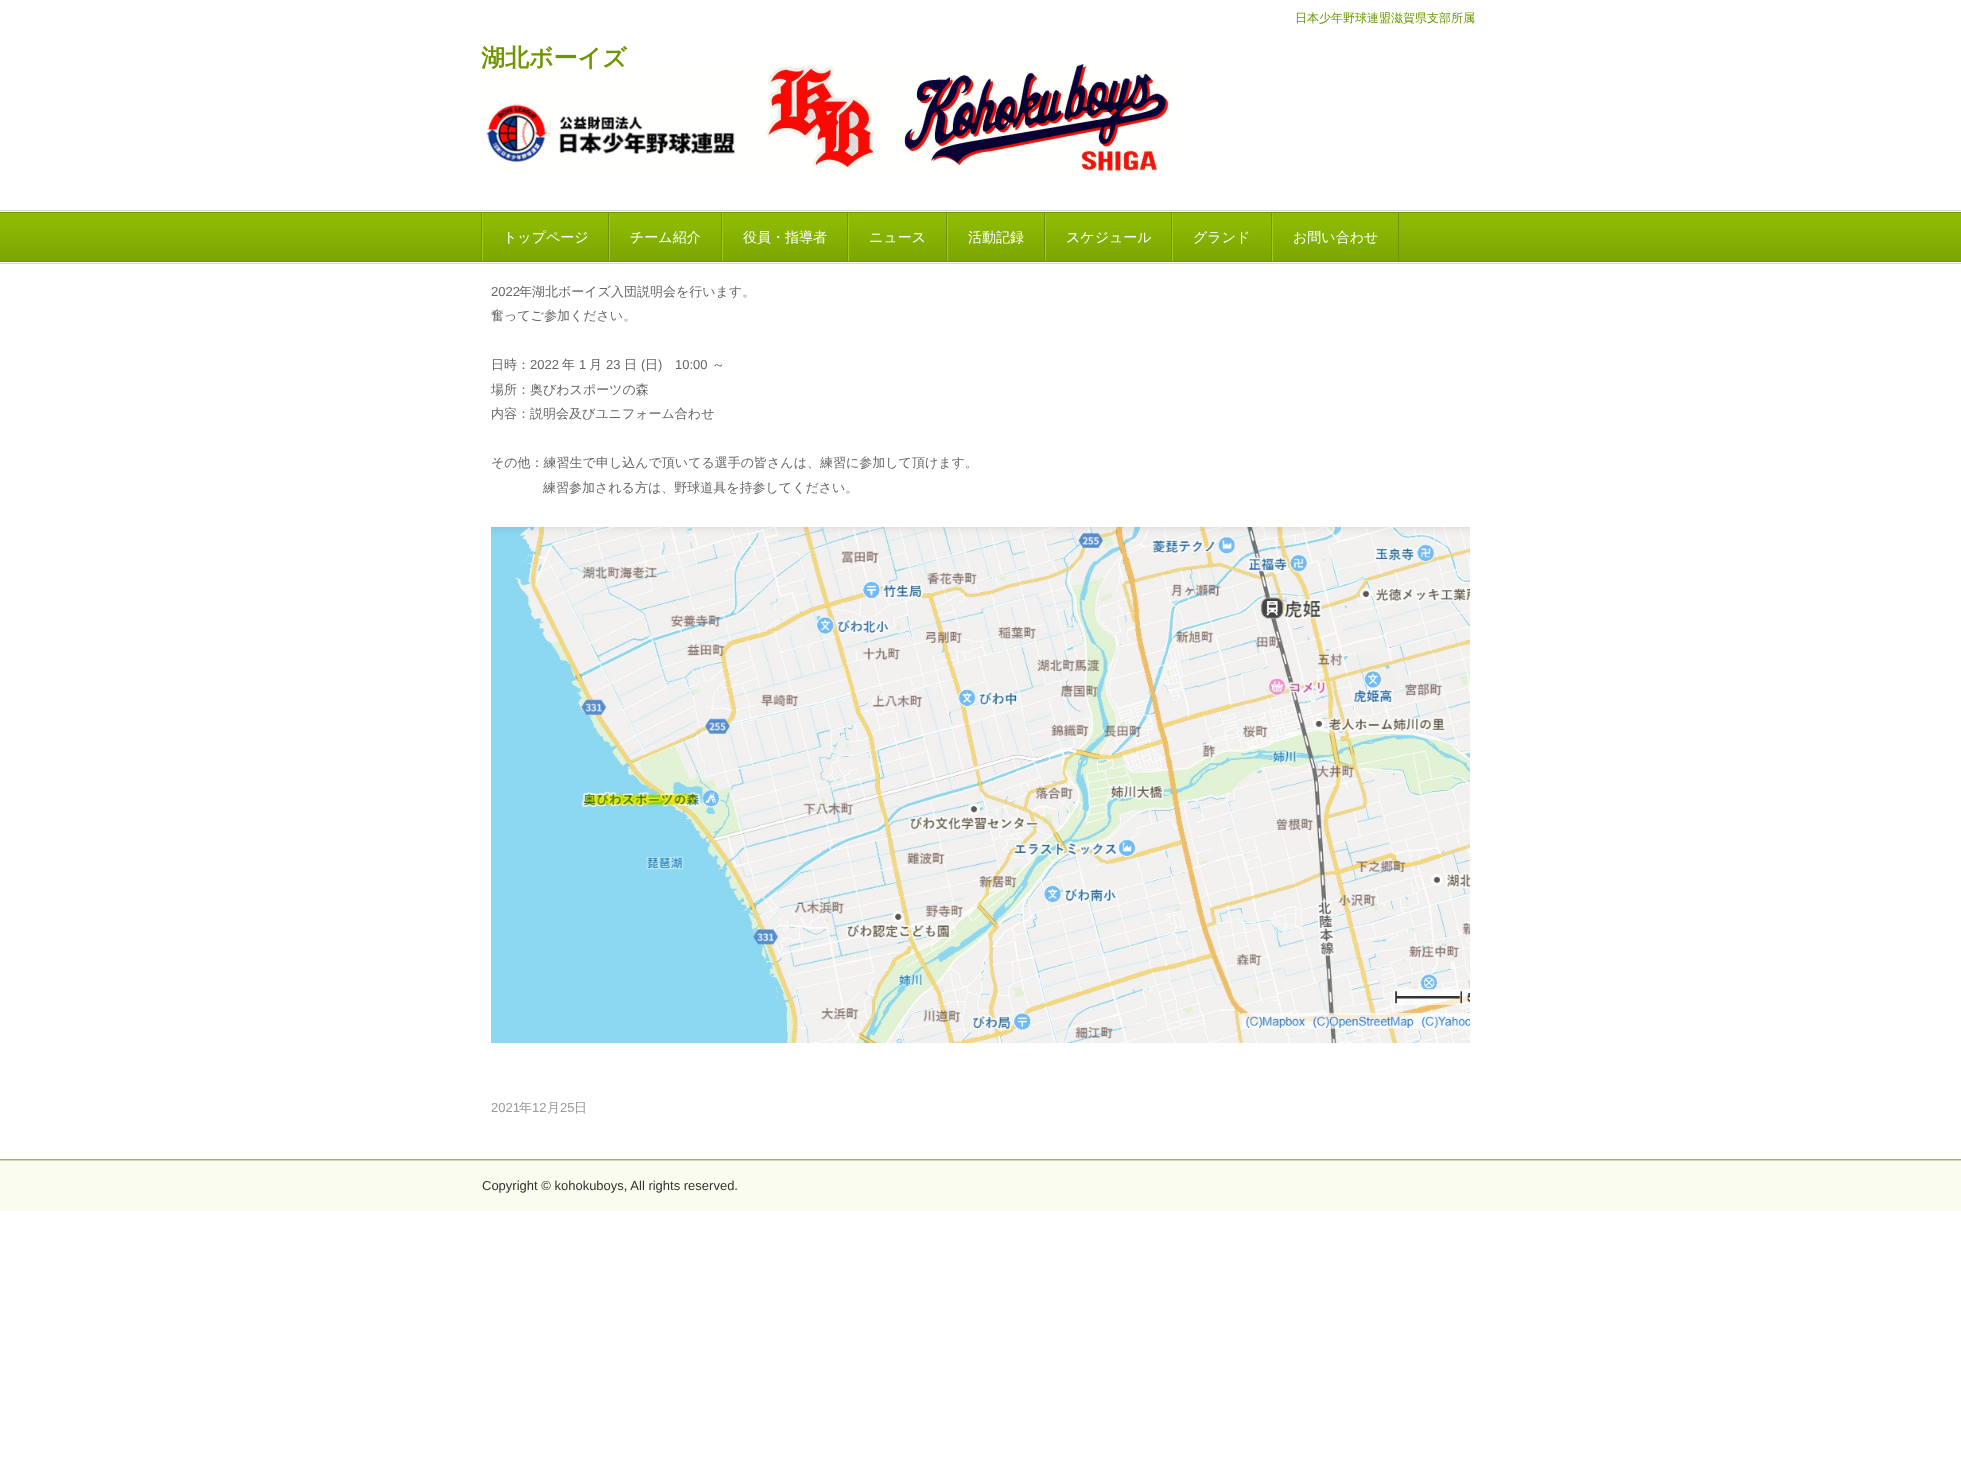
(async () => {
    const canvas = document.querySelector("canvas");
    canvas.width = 1961;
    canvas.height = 1466;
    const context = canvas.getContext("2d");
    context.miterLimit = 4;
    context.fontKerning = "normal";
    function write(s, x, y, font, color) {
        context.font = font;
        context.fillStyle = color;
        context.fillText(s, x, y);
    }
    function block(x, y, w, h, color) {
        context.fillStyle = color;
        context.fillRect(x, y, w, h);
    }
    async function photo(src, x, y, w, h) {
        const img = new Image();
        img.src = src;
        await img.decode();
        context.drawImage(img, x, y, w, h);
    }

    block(0, 0, 1961, 1466, "rgb(255, 255, 255)");
    write("日本少年野球連盟滋賀県支部所属", 1295, 22, "500 12px WenQuanYi Zen Hei", "rgb(102, 153, 0)");
    await photo("media/1.png", 486, 64, 692, 111);
    write("湖北ボーイズ", 481, 66, "bold 24px WenQuanYi Zen Hei", "rgb(111, 149, 2)");
    await photo("media/2.png", 0, 213, 1961, 48);
    block(0, 210, 1961, 1, "rgb(215, 215, 215)");
    block(0, 263, 1961, 1, "rgb(215, 215, 215)");
    block(0, 212, 1961, 1, "rgb(111, 149, 1)");
    block(481, 213, 1, 48, "rgb(111, 149, 1)");
    block(608, 213, 1, 48, "rgb(111, 149, 1)");
    block(482, 213, 1, 48, "rgb(158, 205, 18)");
    write("トップページ", 503, 242, "500 14px WenQuanYi Zen Hei", "rgb(255, 255, 255)");
    block(721, 213, 1, 48, "rgb(111, 149, 1)");
    block(609, 213, 1, 48, "rgb(158, 205, 18)");
    write("チーム紹介", 630, 242, "500 14px WenQuanYi Zen Hei", "rgb(255, 255, 255)");
    block(847, 213, 1, 48, "rgb(111, 149, 1)");
    block(722, 213, 1, 48, "rgb(158, 205, 18)");
    write("役員・指導者", 743, 242, "500 14px WenQuanYi Zen Hei", "rgb(255, 255, 255)");
    block(946, 213, 1, 48, "rgb(111, 149, 1)");
    block(848, 213, 1, 48, "rgb(158, 205, 18)");
    write("ニュース", 869, 242, "500 14px WenQuanYi Zen Hei", "rgb(255, 255, 255)");
    block(1044, 213, 1, 48, "rgb(111, 149, 1)");
    block(947, 213, 1, 48, "rgb(158, 205, 18)");
    write("活動記録", 968, 242, "500 14px WenQuanYi Zen Hei", "rgb(255, 255, 255)");
    block(1171, 213, 1, 48, "rgb(111, 149, 1)");
    block(1045, 213, 1, 48, "rgb(158, 205, 18)");
    write("スケジュール", 1066, 242, "500 14px WenQuanYi Zen Hei", "rgb(255, 255, 255)");
    block(1271, 213, 1, 48, "rgb(111, 149, 1)");
    block(1172, 213, 1, 48, "rgb(158, 205, 18)");
    write("グランド", 1193, 242, "500 14px WenQuanYi Zen Hei", "rgb(255, 255, 255)");
    block(1398, 213, 1, 48, "rgb(111, 149, 1)");
    block(1272, 213, 1, 48, "rgb(158, 205, 18)");
    write("お問い合わせ", 1293, 242, "500 14px WenQuanYi Zen Hei", "rgb(255, 255, 255)");
    block(0, 261, 1961, 1, "rgb(111, 149, 1)");
    write("2022", 491, 296, "13px Liberation Sans", "rgb(102, 102, 102)");
    write("年湖北ボーイズ入団説明会を行います。", 519, 296, "500 13px WenQuanYi Zen Hei", "rgb(102, 102, 102)");
    write("奮ってご参加ください。", 491, 320, "500 13px WenQuanYi Zen Hei", "rgb(102, 102, 102)");
    write("日時：", 491, 369, "500 13px WenQuanYi Zen Hei", "rgb(102, 102, 102)");
    write("2022", 530, 369, "13px Liberation Sans", "rgb(102, 102, 102)");
    write("年", 562, 369, "500 13px WenQuanYi Zen Hei", "rgb(102, 102, 102)");
    write("1", 579, 369, "13px Liberation Sans", "rgb(102, 102, 102)");
    write("月", 589, 369, "500 13px WenQuanYi Zen Hei", "rgb(102, 102, 102)");
    write("23", 606, 369, "13px Liberation Sans", "rgb(102, 102, 102)");
    write("日", 624, 369, "500 13px WenQuanYi Zen Hei", "rgb(102, 102, 102)");
    write("(", 641, 369, "13px Liberation Sans", "rgb(102, 102, 102)");
    write("日", 645, 369, "500 13px WenQuanYi Zen Hei", "rgb(102, 102, 102)");
    write(")", 658, 369, "13px Liberation Sans", "rgb(102, 102, 102)");
    write("10:00", 675, 369, "13px Liberation Sans", "rgb(102, 102, 102)");
    write("～", 712, 369, "500 13px WenQuanYi Zen Hei", "rgb(102, 102, 102)");
    write("場所：奥びわスポーツの森", 491, 394, "500 13px WenQuanYi Zen Hei", "rgb(102, 102, 102)");
    write("内容：説明会及びユニフォーム合わせ", 491, 418, "500 13px WenQuanYi Zen Hei", "rgb(102, 102, 102)");
    write("その他：練習生で申し込んで頂いてる選手の皆さんは、練習に参加して頂けます。", 491, 467, "500 13px WenQuanYi Zen Hei", "rgb(102, 102, 102)");
    write("練習参加される方は、野球道具を持参してください。", 543, 492, "500 13px WenQuanYi Zen Hei", "rgb(102, 102, 102)");
    await photo("media/3.png", 491, 527, 979, 516);
    write("2021", 491, 1112, "13px Liberation Sans", "rgb(153, 153, 153)");
    write("年", 519, 1112, "500 13px WenQuanYi Zen Hei", "rgb(153, 153, 153)");
    write("12", 532, 1112, "13px Liberation Sans", "rgb(153, 153, 153)");
    write("月", 547, 1112, "500 13px WenQuanYi Zen Hei", "rgb(153, 153, 153)");
    write("25", 560, 1112, "13px Liberation Sans", "rgb(153, 153, 153)");
    write("日", 574, 1112, "500 13px WenQuanYi Zen Hei", "rgb(153, 153, 153)");
    block(0, 1161, 1961, 50, "rgb(249, 252, 238)");
    block(0, 1159, 1961, 1, "rgb(151, 202, 0)");
    block(0, 1160, 1961, 1, "rgb(208, 219, 177)");
    write("Copyright © kohokuboys, All rights reserved.", 482, 1190, "13px Liberation Sans", "rgb(51, 51, 51)");
})();
